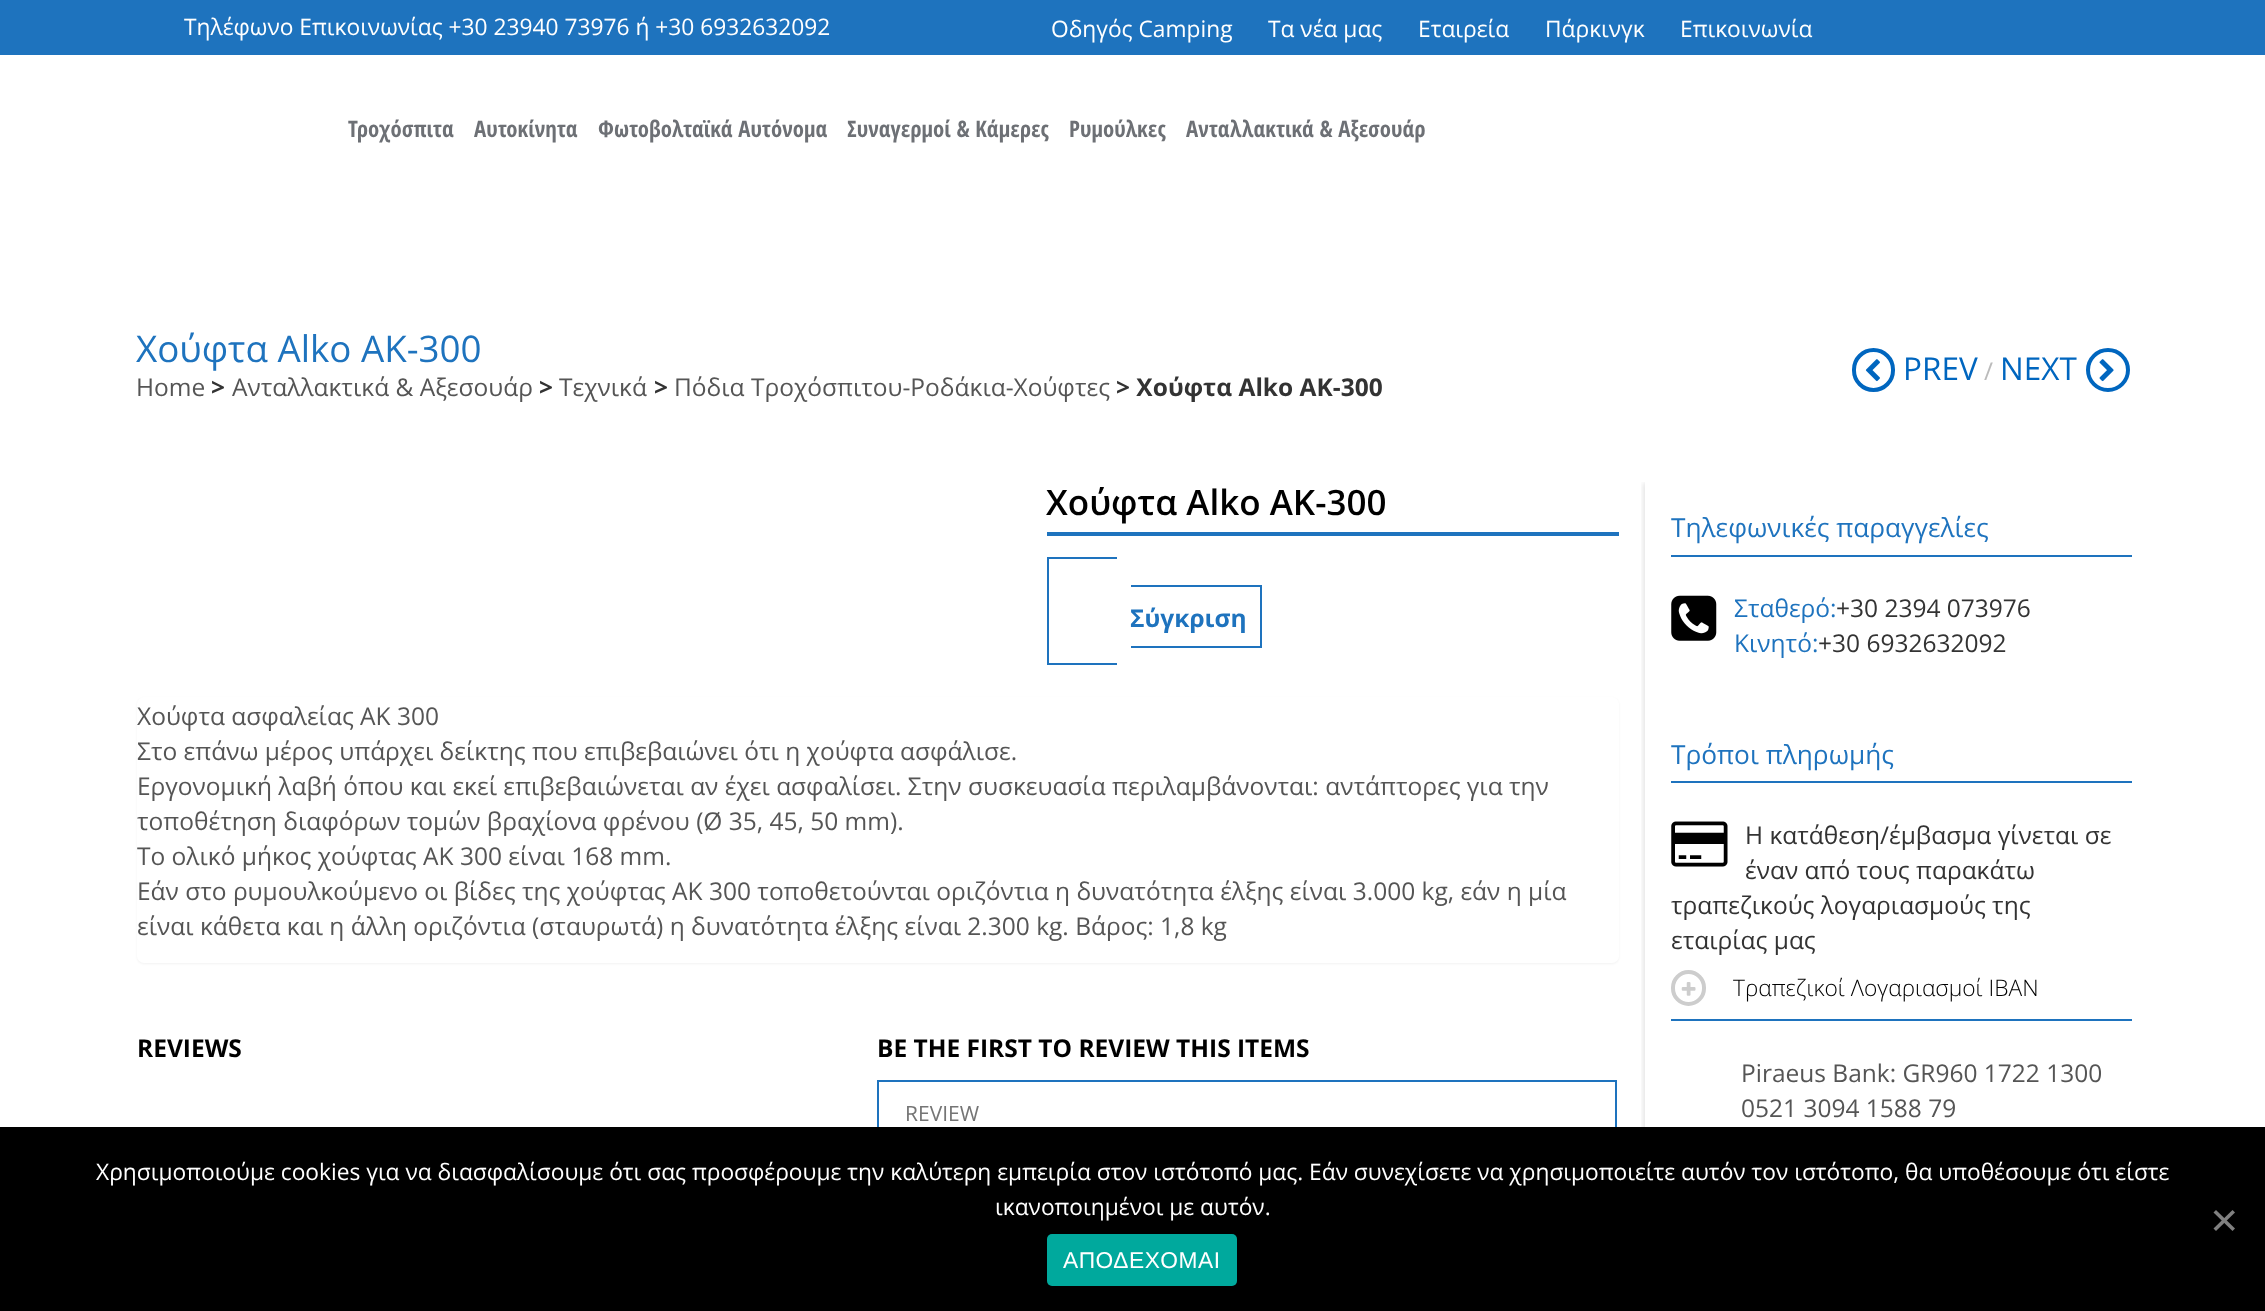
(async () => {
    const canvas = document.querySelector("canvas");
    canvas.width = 2265;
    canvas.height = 1311;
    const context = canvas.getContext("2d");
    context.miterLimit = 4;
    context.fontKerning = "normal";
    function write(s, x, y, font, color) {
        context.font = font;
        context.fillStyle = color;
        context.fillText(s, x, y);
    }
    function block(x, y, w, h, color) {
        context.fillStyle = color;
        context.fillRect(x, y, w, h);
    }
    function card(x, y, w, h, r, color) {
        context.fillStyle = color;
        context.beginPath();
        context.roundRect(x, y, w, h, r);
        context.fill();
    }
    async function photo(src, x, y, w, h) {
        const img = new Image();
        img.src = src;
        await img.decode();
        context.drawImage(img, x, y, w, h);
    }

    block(0, 0, 2265, 1311, "rgb(255, 255, 255)");
    block(0, 0, 2265, 55, "rgb(30, 115, 190)");
    write("Τηλέφωνο Επικοινωνίας +30 23940 73976 ή +30 6932632092", 184, 35, "22.75px Open Sans", "rgb(255, 255, 255)");
    write("Οδηγός Camping", 1051, 37, "22.75px Open Sans", "rgb(255, 255, 255)");
    write("Τα νέα μας", 1268, 37, "22.75px Open Sans", "rgb(255, 255, 255)");
    write("Εταιρεία", 1418, 37, "22.75px Open Sans", "rgb(255, 255, 255)");
    write("Πάρκινγκ", 1545, 37, "22.75px Open Sans", "rgb(255, 255, 255)");
    write("Επικοινωνία", 1680, 37, "22.75px Open Sans", "rgb(255, 255, 255)");
    write("Τροχόσπιτα", 348, 137, "bold 22.75px Open Sans Condensed", "rgb(109, 112, 117)");
    write("Αυτοκίνητα", 474, 137, "bold 22.75px Open Sans Condensed", "rgb(109, 112, 117)");
    write("Φωτοβολταϊκά Αυτόνομα", 598, 137, "bold 22.75px Open Sans Condensed", "rgb(109, 112, 117)");
    write("Συναγερμοί & Κάμερες", 847, 137, "bold 22.75px Open Sans Condensed", "rgb(109, 112, 117)");
    write("Ρυμούλκες", 1069, 137, "bold 22.75px Open Sans Condensed", "rgb(109, 112, 117)");
    write("Ανταλλακτικά & Αξεσουάρ", 1186, 137, "bold 22.75px Open Sans Condensed", "rgb(109, 112, 117)");
    write("Xούφτα Alko AK-300", 136, 362, "36.75px Open Sans", "rgb(30, 115, 190)");
    context.beginPath();
    context.roundRect(1854, 350, 39, 40, 19.5);
    context.strokeStyle = "rgb(0, 102, 191)";
    context.lineWidth = 4;
    context.stroke();
    await photo("media/1.png", 1865, 359, 15, 23);
    write("PREV", 1903, 380, "31.5px Open Sans", "rgb(0, 102, 191)");
    write("/", 1984, 380, "24.5px Open Sans", "rgb(187, 187, 187)");
    write("NEXT", 2000, 380, "31.5px Open Sans", "rgb(0, 102, 191)");
    context.beginPath();
    context.arc(2108, 370, 20, 0, Math.PI * 2);
    context.stroke();
    await photo("media/2.png", 2099, 359, 15, 23);
    write("Home", 136, 396, "24.5px Open Sans", "rgb(85, 85, 85)");
    write(">", 211, 396, "bold 24.5px Open Sans", "rgb(51, 51, 51)");
    write("Ανταλλακτικά & Αξεσουάρ", 232, 396, "24.5px Open Sans", "rgb(85, 85, 85)");
    write(">", 539, 396, "bold 24.5px Open Sans", "rgb(51, 51, 51)");
    write("Τεχνικά", 559, 396, "24.5px Open Sans", "rgb(85, 85, 85)");
    write(">", 654, 396, "bold 24.5px Open Sans", "rgb(51, 51, 51)");
    write("Πόδια Τροχόσπιτου-Ροδάκια-Χούφτες", 674, 396, "24.5px Open Sans", "rgb(85, 85, 85)");
    write("> Xούφτα Alko AK-300", 1116, 396, "bold 24.5px Open Sans", "rgb(51, 51, 51)");
    block(1047, 532, 572, 4, "rgb(30, 115, 190)");
    write("Xούφτα Alko AK-300", 1046, 515, "600 35px Open Sans", "rgb(0, 0, 0)");
    write("Σύγκριση", 1130, 627, "bold 24.5px Open Sans", "rgb(30, 115, 190)");
    block(1047, 557, 70, 2, "rgb(30, 115, 190)");
    block(1047, 663, 70, 2, "rgb(30, 115, 190)");
    block(1047, 557, 2, 108, "rgb(30, 115, 190)");
    block(1131, 585, 131, 2, "rgb(30, 115, 190)");
    block(1260, 585, 2, 63, "rgb(30, 115, 190)");
    block(1131, 646, 131, 2, "rgb(30, 115, 190)");
    context.fillStyle = "rgba(0, 0, 0, 0.05)";
    context.filter = "blur(1px)";
    context.beginPath();
    context.roundRect(137, 698, 1482, 266, 7);
    context.fill();
    context.filter = "none";
    card(137, 697, 1482, 266, 7, "rgb(255, 255, 255)");
    write("Χούφτα ασφαλείας ΑΚ 300", 137, 725, "24.5px Open Sans", "rgb(85, 85, 85)");
    write("Στο επάνω μέρος υπάρχει δείκτης που επιβεβαιώνει ότι η χούφτα ασφάλισε.", 137, 760, "24.5px Open Sans", "rgb(85, 85, 85)");
    write("Εργονομική λαβή όπου και εκεί επιβεβαιώνεται αν έχει ασφαλίσει. Στην συσκευασία περιλαμβάνονται: αντάπτορες για την", 137, 795, "24.5px Open Sans", "rgb(85, 85, 85)");
    write("τοποθέτηση διαφόρων τομών βραχίονα φρένου (Ø 35, 45, 50 mm).", 137, 830, "24.5px Open Sans", "rgb(85, 85, 85)");
    write("Το ολικό μήκος χούφτας ΑΚ 300 είναι 168 mm.", 137, 865, "24.5px Open Sans", "rgb(85, 85, 85)");
    write("Εάν στο ρυμουλκούμενο οι βίδες της χούφτας ΑΚ 300 τοποθετούνται οριζόντια η δυνατότητα έλξης είναι 3.000 kg, εάν η μία", 137, 900, "24.5px Open Sans", "rgb(85, 85, 85)");
    write("είναι κάθετα και η άλλη οριζόντια (σταυρωτά) η δυνατότητα έλξης είναι 2.300 kg. Βάρος: 1,8 kg", 137, 935, "24.5px Open Sans", "rgb(85, 85, 85)");
    write("REVIEWS", 137, 1057, "bold 24.5px Open Sans", "rgb(0, 0, 0)");
    write("BE THE FIRST TO REVIEW THIS ITEMS", 877, 1057, "bold 24.5px Open Sans", "rgb(0, 0, 0)");
    context.strokeStyle = "rgb(30, 115, 190)";
    context.lineWidth = 2;
    context.strokeRect(878, 1081, 738, 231);
    write("REVIEW", 905, 1121, "21px Open Sans", "rgb(117, 117, 117)");
    context.save();
    context.beginPath();
    context.rect(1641, 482, 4, 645);
    context.clip();
    context.fillStyle = "rgba(0, 0, 0, 0.1)";
    context.filter = "blur(2.5px)";
    context.beginPath();
    context.rect(1643, 483, 503, 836);
    context.fill();
    context.filter = "none";
    context.restore();
    block(1671, 555, 461, 2, "rgb(30, 115, 190)");
    write("Τηλεφωνικές παραγγελίες", 1671, 537, "26.25px Open Sans", "rgb(30, 115, 190)");
    await photo("media/3.png", 1671, 595, 46, 46);
    write("Σταθερό:", 1734, 617, "24.5px Open Sans", "rgb(30, 115, 190)");
    write("+30 2394 073976", 1836, 617, "24.5px Open Sans", "rgb(51, 51, 51)");
    write("Κινητό:", 1734, 652, "24.5px Open Sans", "rgb(30, 115, 190)");
    write("+30 6932632092", 1818, 652, "24.5px Open Sans", "rgb(51, 51, 51)");
    block(1671, 781, 461, 2, "rgb(30, 115, 190)");
    write("Τρόποι πληρωμής", 1671, 764, "26.25px Open Sans", "rgb(30, 115, 190)");
    await photo("media/4.png", 1671, 821, 57, 46);
    write("Η κατάθεση/έμβασμα γίνεται σε", 1745, 844, "24.5px Open Sans", "rgb(51, 51, 51)");
    write("έναν από τους παρακάτω", 1745, 879, "24.5px Open Sans", "rgb(51, 51, 51)");
    write("τραπεζικούς λογαριασμούς της", 1671, 914, "24.5px Open Sans", "rgb(51, 51, 51)");
    write("εταιρίας μας", 1671, 949, "24.5px Open Sans", "rgb(51, 51, 51)");
    block(1671, 1019, 461, 2, "rgb(30, 115, 190)");
    context.beginPath();
    context.roundRect(1673, 972, 31, 32, 15.5);
    context.strokeStyle = "rgb(205, 205, 205)";
    context.lineWidth = 4;
    context.stroke();
    await photo("media/5.png", 1681, 982, 15, 14);
    write("Τραπεζικοί Λογαριασμοί IBAN", 1733, 996, "300 22.75px Open Sans", "rgb(0, 0, 0)");
    write("Piraeus Bank: GR960 1722 1300", 1741, 1082, "24.5px Open Sans", "rgb(85, 85, 85)");
    write("0521 3094 1588 79", 1741, 1117, "24.5px Open Sans", "rgb(85, 85, 85)");
    block(0, 1127, 2265, 184, "rgb(0, 0, 0)");
    write("Χρησιμοποιούμε cookies για να διασφαλίσουμε ότι σας προσφέρουμε την καλύτερη εμπειρία στον ιστότοπό μας. Εάν συνεχίσετε να χρησιμοποιείτε αυτόν τον ιστότοπο, θα υποθέσουμε ότι είστε", 96, 1180, "22.75px Open Sans", "rgb(255, 255, 255)");
    write("ικανοποιημένοι με αυτόν.", 995, 1215, "22.75px Open Sans", "rgb(255, 255, 255)");
    context.fillStyle = "rgb(128, 128, 128)";
    context.beginPath();
    context.moveTo(2232.5, 1210);
    context.lineTo(2235, 1212.5);
    context.lineTo(2216, 1231);
    context.lineTo(2213.5, 1228.5);
    context.closePath();
    context.fill();
    context.beginPath();
    context.moveTo(2213.5, 1212.5);
    context.lineTo(2216, 1210);
    context.lineTo(2235, 1228.5);
    context.lineTo(2232.5, 1231);
    context.closePath();
    context.fill();
    card(1047, 1234, 190, 52, 5, "rgb(0, 169, 157)");
    context.letterSpacing = "0.5px";
    write("ΑΠΟΔΕΧΟΜΑΙ", 1063, 1268, "22.75px Liberation Sans", "rgb(255, 255, 255)");
})();
